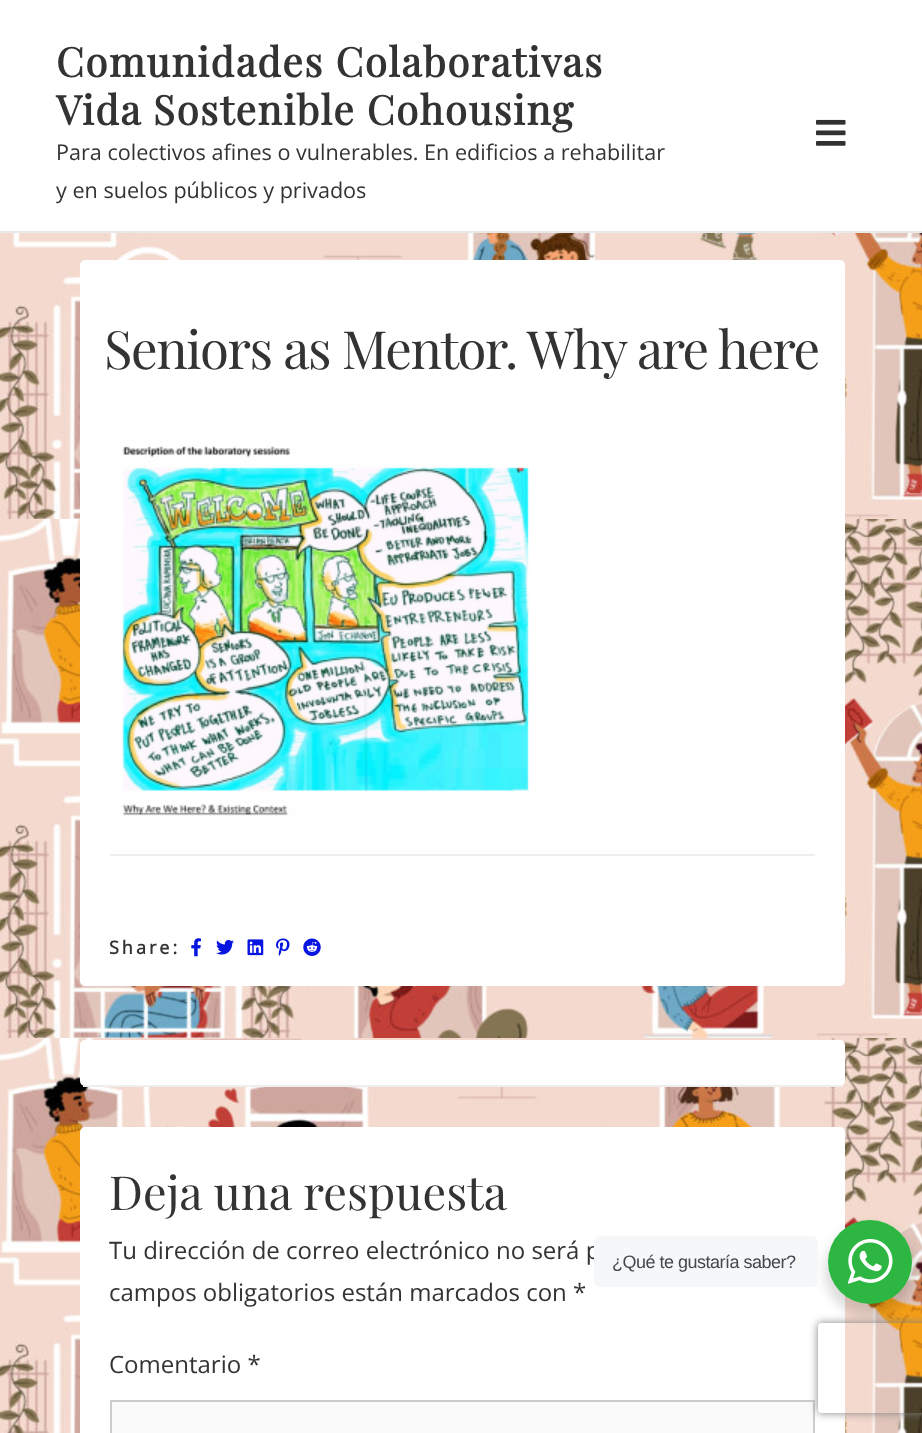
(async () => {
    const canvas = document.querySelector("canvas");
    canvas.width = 922;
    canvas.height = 1433;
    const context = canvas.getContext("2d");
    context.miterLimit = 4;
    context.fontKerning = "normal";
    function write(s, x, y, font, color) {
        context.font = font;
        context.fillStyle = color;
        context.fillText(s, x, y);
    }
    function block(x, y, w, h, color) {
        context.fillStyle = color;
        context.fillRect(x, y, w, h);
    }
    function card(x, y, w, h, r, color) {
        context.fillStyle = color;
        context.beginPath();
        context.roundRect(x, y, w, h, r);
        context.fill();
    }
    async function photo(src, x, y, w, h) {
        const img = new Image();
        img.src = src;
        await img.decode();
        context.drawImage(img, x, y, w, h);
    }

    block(0, 0, 922, 1433, "rgb(255, 255, 255)");
    await photo("media/1.png", 0, 233, 922, 1200);
    block(0, 231, 922, 2, "rgb(233, 233, 234)");
    context.letterSpacing = "1.5px";
    write("Comunidades Colaborativas", 56, 77, "bold 40.5px Playfair Display", "rgb(51, 51, 51)");
    write("Vida Sostenible Cohousing", 56, 125, "bold 40.5px Playfair Display", "rgb(51, 51, 51)");
    context.letterSpacing = "0px";
    write("Para colectivos afines o vulnerables. En edificios a rehabilitar", 56, 160, "21.6px Open Sans", "rgb(51, 51, 51)");
    write("y en suelos públicos y privados", 56, 198, "21.6px Open Sans", "rgb(51, 51, 51)");
    await photo("media/2.png", 816, 119, 30, 27);
    card(80, 260, 765, 726, 5, "rgb(255, 255, 255)");
    context.letterSpacing = "-1.5px";
    write("Seniors as Mentor. Why are here", 104, 369, "52.75px Playfair Display", "rgb(51, 51, 51)");
    await photo("media/3.png", 122, 445, 407, 371);
    block(110, 854, 705, 2, "rgb(238, 238, 238)");
    context.letterSpacing = "3px";
    write("Share:", 109, 954, "bold 18px Open Sans", "rgb(51, 51, 51)");
    await photo("media/4.png", 191, 938, 10, 19);
    await photo("media/5.png", 216, 939, 18, 16);
    await photo("media/6.png", 247, 939, 17, 17);
    await photo("media/7.png", 276, 938, 14, 18);
    await photo("media/8.png", 303, 938, 18, 18);
    card(80, 1040, 765, 46, 5, "rgb(255, 255, 255)");
    block(83, 1085, 760, 2, "rgb(238, 238, 238)");
    card(80, 1127, 765, 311, 5, "rgb(255, 255, 255)");
    context.letterSpacing = "0px";
    write("Deja una respuesta", 109, 1210, "46.9px Playfair Display", "rgb(51, 51, 51)");
    write("Tu dirección de correo electrónico no será p", 109, 1259, "24px Open Sans", "rgb(51, 51, 51)");
    write("campos obligatorios están marcados con *", 109, 1301, "24px Open Sans", "rgb(51, 51, 51)");
    write("Comentario *", 109, 1373, "24px Open Sans", "rgb(51, 51, 51)");
    context.fillStyle = "rgb(250, 250, 250)";
    context.beginPath();
    context.rect(111, 1401, 703, 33);
    context.fill();
    context.strokeStyle = "rgb(204, 204, 204)";
    context.lineWidth = 2;
    context.stroke();
    context.fillStyle = "rgba(0, 0, 0, 0.14)";
    context.filter = "blur(6px)";
    context.beginPath();
    context.roundRect(825, 1226, 90, 90, 45);
    context.fill();
    context.filter = "none";
    card(594, 1236, 224, 51, 6, "rgb(245, 247, 249)");
    context.letterSpacing = "-0.5px";
    write("¿Qué te gustaría saber?", 612, 1268, "18px Liberation Sans", "rgb(67, 71, 78)");
    context.fillStyle = "rgb(45, 183, 66)";
    context.beginPath();
    context.arc(870, 1262, 42, 0, Math.PI * 2);
    context.fill();
    await photo("media/9.png", 848, 1239, 45, 45);
    context.save();
    context.beginPath();
    context.moveTo(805, 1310);
    context.lineTo(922, 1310);
    context.lineTo(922, 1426);
    context.lineTo(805, 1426);
    context.closePath();
    context.moveTo(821, 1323);
    context.lineTo(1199, 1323);
    context.bezierCurveTo(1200.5, 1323, 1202, 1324.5, 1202, 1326);
    context.lineTo(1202, 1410);
    context.bezierCurveTo(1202, 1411.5, 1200.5, 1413, 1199, 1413);
    context.lineTo(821, 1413);
    context.bezierCurveTo(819.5, 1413, 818, 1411.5, 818, 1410);
    context.lineTo(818, 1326);
    context.bezierCurveTo(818, 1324.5, 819.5, 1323, 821, 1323);
    context.closePath();
    context.clip("evenodd");
    context.fillStyle = "rgb(128, 128, 128)";
    context.filter = "blur(4px)";
    context.beginPath();
    context.roundRect(818, 1323, 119, 90, 3);
    context.fill();
    context.filter = "none";
    context.restore();
})();
